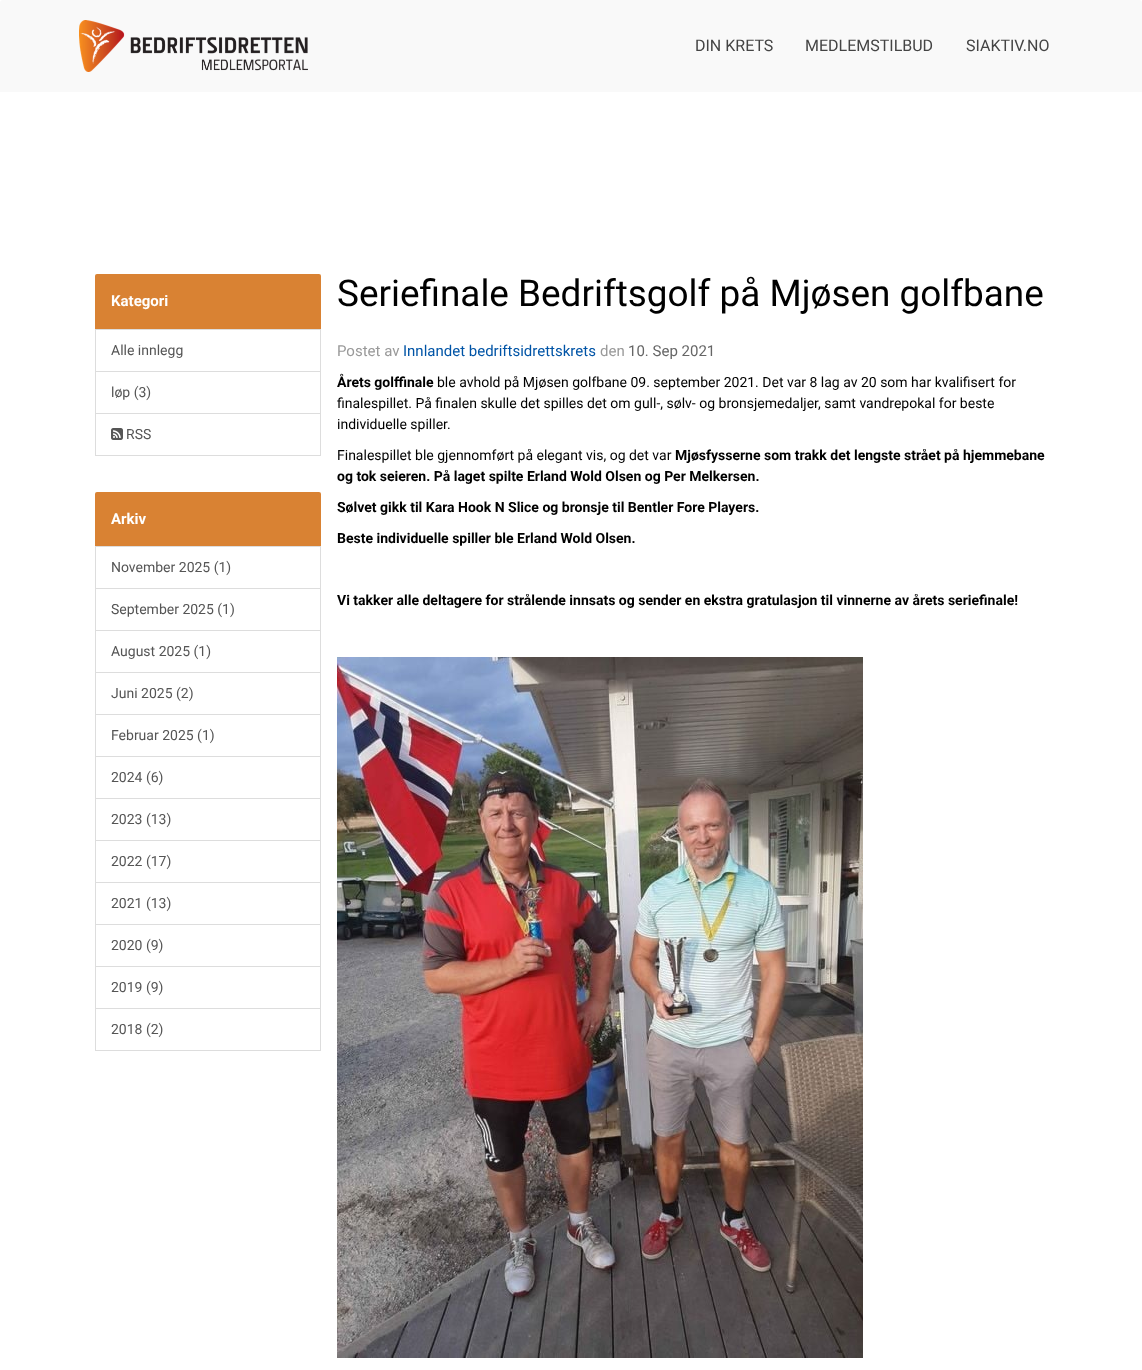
(async () => {
    const canvas = document.querySelector("canvas");
    canvas.width = 1142;
    canvas.height = 1370;
    const context = canvas.getContext("2d");
    context.miterLimit = 4;
    context.fontKerning = "normal";
    function write(s, x, y, font, color) {
        context.font = font;
        context.fillStyle = color;
        context.fillText(s, x, y);
    }
    function block(x, y, w, h, color) {
        context.fillStyle = color;
        context.fillRect(x, y, w, h);
    }
    async function photo(src, x, y, w, h) {
        const img = new Image();
        img.src = src;
        await img.decode();
        context.drawImage(img, x, y, w, h);
    }

    block(0, 0, 1142, 1370, "rgb(255, 255, 255)");
    context.fillStyle = "rgb(249, 249, 249)";
    context.beginPath();
    context.roundRect(0, 0, 1142, 92, [3, 3, 0, 0]);
    context.fill();
    await photo("media/1.png", 79, 20, 229, 52);
    write("DIN KRETS", 695, 51, "16px Roboto", "rgb(68, 68, 68)");
    write("MEDLEMSTILBUD", 805, 51, "16px Roboto", "rgb(68, 68, 68)");
    write("SIAKTIV.NO", 966, 51, "16px Roboto", "rgb(68, 68, 68)");
    context.fillStyle = "rgb(217, 130, 51)";
    context.beginPath();
    context.roundRect(95, 274, 226, 55, [2, 2, 0, 0]);
    context.fill();
    write("Kategori", 111, 306, "bold 15px Roboto", "rgb(255, 255, 255)");
    context.strokeStyle = "rgb(221, 221, 221)";
    context.strokeRect(95.5, 329.5, 225, 42);
    write("Alle innlegg", 111, 355, "14px Roboto", "rgb(85, 85, 85)");
    context.strokeRect(95.5, 371.5, 225, 42);
    write("løp (3)", 111, 397, "14px Roboto", "rgb(85, 85, 85)");
    context.strokeRect(95.5, 413.5, 225, 42);
    await photo("media/2.png", 111, 428, 12, 12);
    write("RSS", 126, 439, "14px Roboto", "rgb(85, 85, 85)");
    context.fillStyle = "rgb(217, 130, 51)";
    context.beginPath();
    context.roundRect(95, 492, 226, 54, [2, 2, 0, 0]);
    context.fill();
    write("Arkiv", 111, 524, "bold 15px Roboto", "rgb(255, 255, 255)");
    context.strokeRect(95.5, 546.5, 225, 42);
    write("November 2025 (1)", 111, 572, "14px Roboto", "rgb(85, 85, 85)");
    context.strokeRect(95.5, 588.5, 225, 42);
    write("September 2025 (1)", 111, 614, "14px Roboto", "rgb(85, 85, 85)");
    context.strokeRect(95.5, 630.5, 225, 42);
    write("August 2025 (1)", 111, 656, "14px Roboto", "rgb(85, 85, 85)");
    context.strokeRect(95.5, 672.5, 225, 42);
    write("Juni 2025 (2)", 111, 698, "14px Roboto", "rgb(85, 85, 85)");
    context.strokeRect(95.5, 714.5, 225, 42);
    write("Februar 2025 (1)", 111, 740, "14px Roboto", "rgb(85, 85, 85)");
    context.strokeRect(95.5, 756.5, 225, 42);
    write("2024 (6)", 111, 782, "14px Roboto", "rgb(85, 85, 85)");
    context.strokeRect(95.5, 798.5, 225, 42);
    write("2023 (13)", 111, 824, "14px Roboto", "rgb(85, 85, 85)");
    context.strokeRect(95.5, 840.5, 225, 42);
    write("2022 (17)", 111, 866, "14px Roboto", "rgb(85, 85, 85)");
    context.strokeRect(95.5, 882.5, 225, 42);
    write("2021 (13)", 111, 908, "14px Roboto", "rgb(85, 85, 85)");
    context.strokeRect(95.5, 924.5, 225, 42);
    write("2020 (9)", 111, 950, "14px Roboto", "rgb(85, 85, 85)");
    context.strokeRect(95.5, 966.5, 225, 42);
    write("2019 (9)", 111, 992, "14px Roboto", "rgb(85, 85, 85)");
    context.strokeRect(95.5, 1008.5, 225, 42);
    write("2018 (2)", 111, 1034, "14px Roboto", "rgb(85, 85, 85)");
    write("Seriefinale Bedriftsgolf på Mjøsen golfbane", 337, 306, "36.9px Roboto", "rgb(0, 0, 0)");
    write("Postet av", 337, 356, "15px Roboto", "rgb(153, 153, 153)");
    write("Innlandet bedriftsidrettskrets", 403, 356, "15px Roboto", "rgb(0, 84, 166)");
    write("den", 600, 356, "15px Roboto", "rgb(153, 153, 153)");
    write("10. Sep 2021", 628, 356, "15px Roboto", "rgb(102, 102, 102)");
    write("Årets golffinale", 337, 387, "bold 14px Roboto", "rgb(0, 0, 0)");
    write("ble avhold på Mjøsen golfbane 09. september 2021. Det var 8 lag av 20 som har kvalifisert for", 437, 387, "14px Roboto", "rgb(0, 0, 0)");
    write("finalespillet. På finalen skulle det spilles det om gull-, sølv- og bronsjemedaljer, samt vandrepokal for beste", 337, 408, "14px Roboto", "rgb(0, 0, 0)");
    write("individuelle spiller.", 337, 429, "14px Roboto", "rgb(0, 0, 0)");
    write("Finalespillet ble gjennomført på elegant vis, og det var", 337, 460, "14px Roboto", "rgb(0, 0, 0)");
    write("Mjøsfysserne som trakk det lengste strået på hjemmebane", 675, 460, "bold 14px Roboto", "rgb(0, 0, 0)");
    write("og tok seieren. På laget spilte Erland Wold Olsen og Per Melkersen.", 337, 481, "bold 14px Roboto", "rgb(0, 0, 0)");
    write("Sølvet gikk til Kara Hook N Slice og bronsje til Bentler Fore Players.", 337, 512, "bold 14px Roboto", "rgb(0, 0, 0)");
    write("Beste individuelle spiller ble Erland Wold Olsen.", 337, 543, "bold 14px Roboto", "rgb(0, 0, 0)");
    write("Vi takker alle deltagere for strålende innsats og sender en ekstra gratulasjon til vinnerne av årets seriefinale!", 337, 605, "bold 14px Roboto", "rgb(0, 0, 0)");
    await photo("media/3.png", 337, 657, 526, 701);
})();
